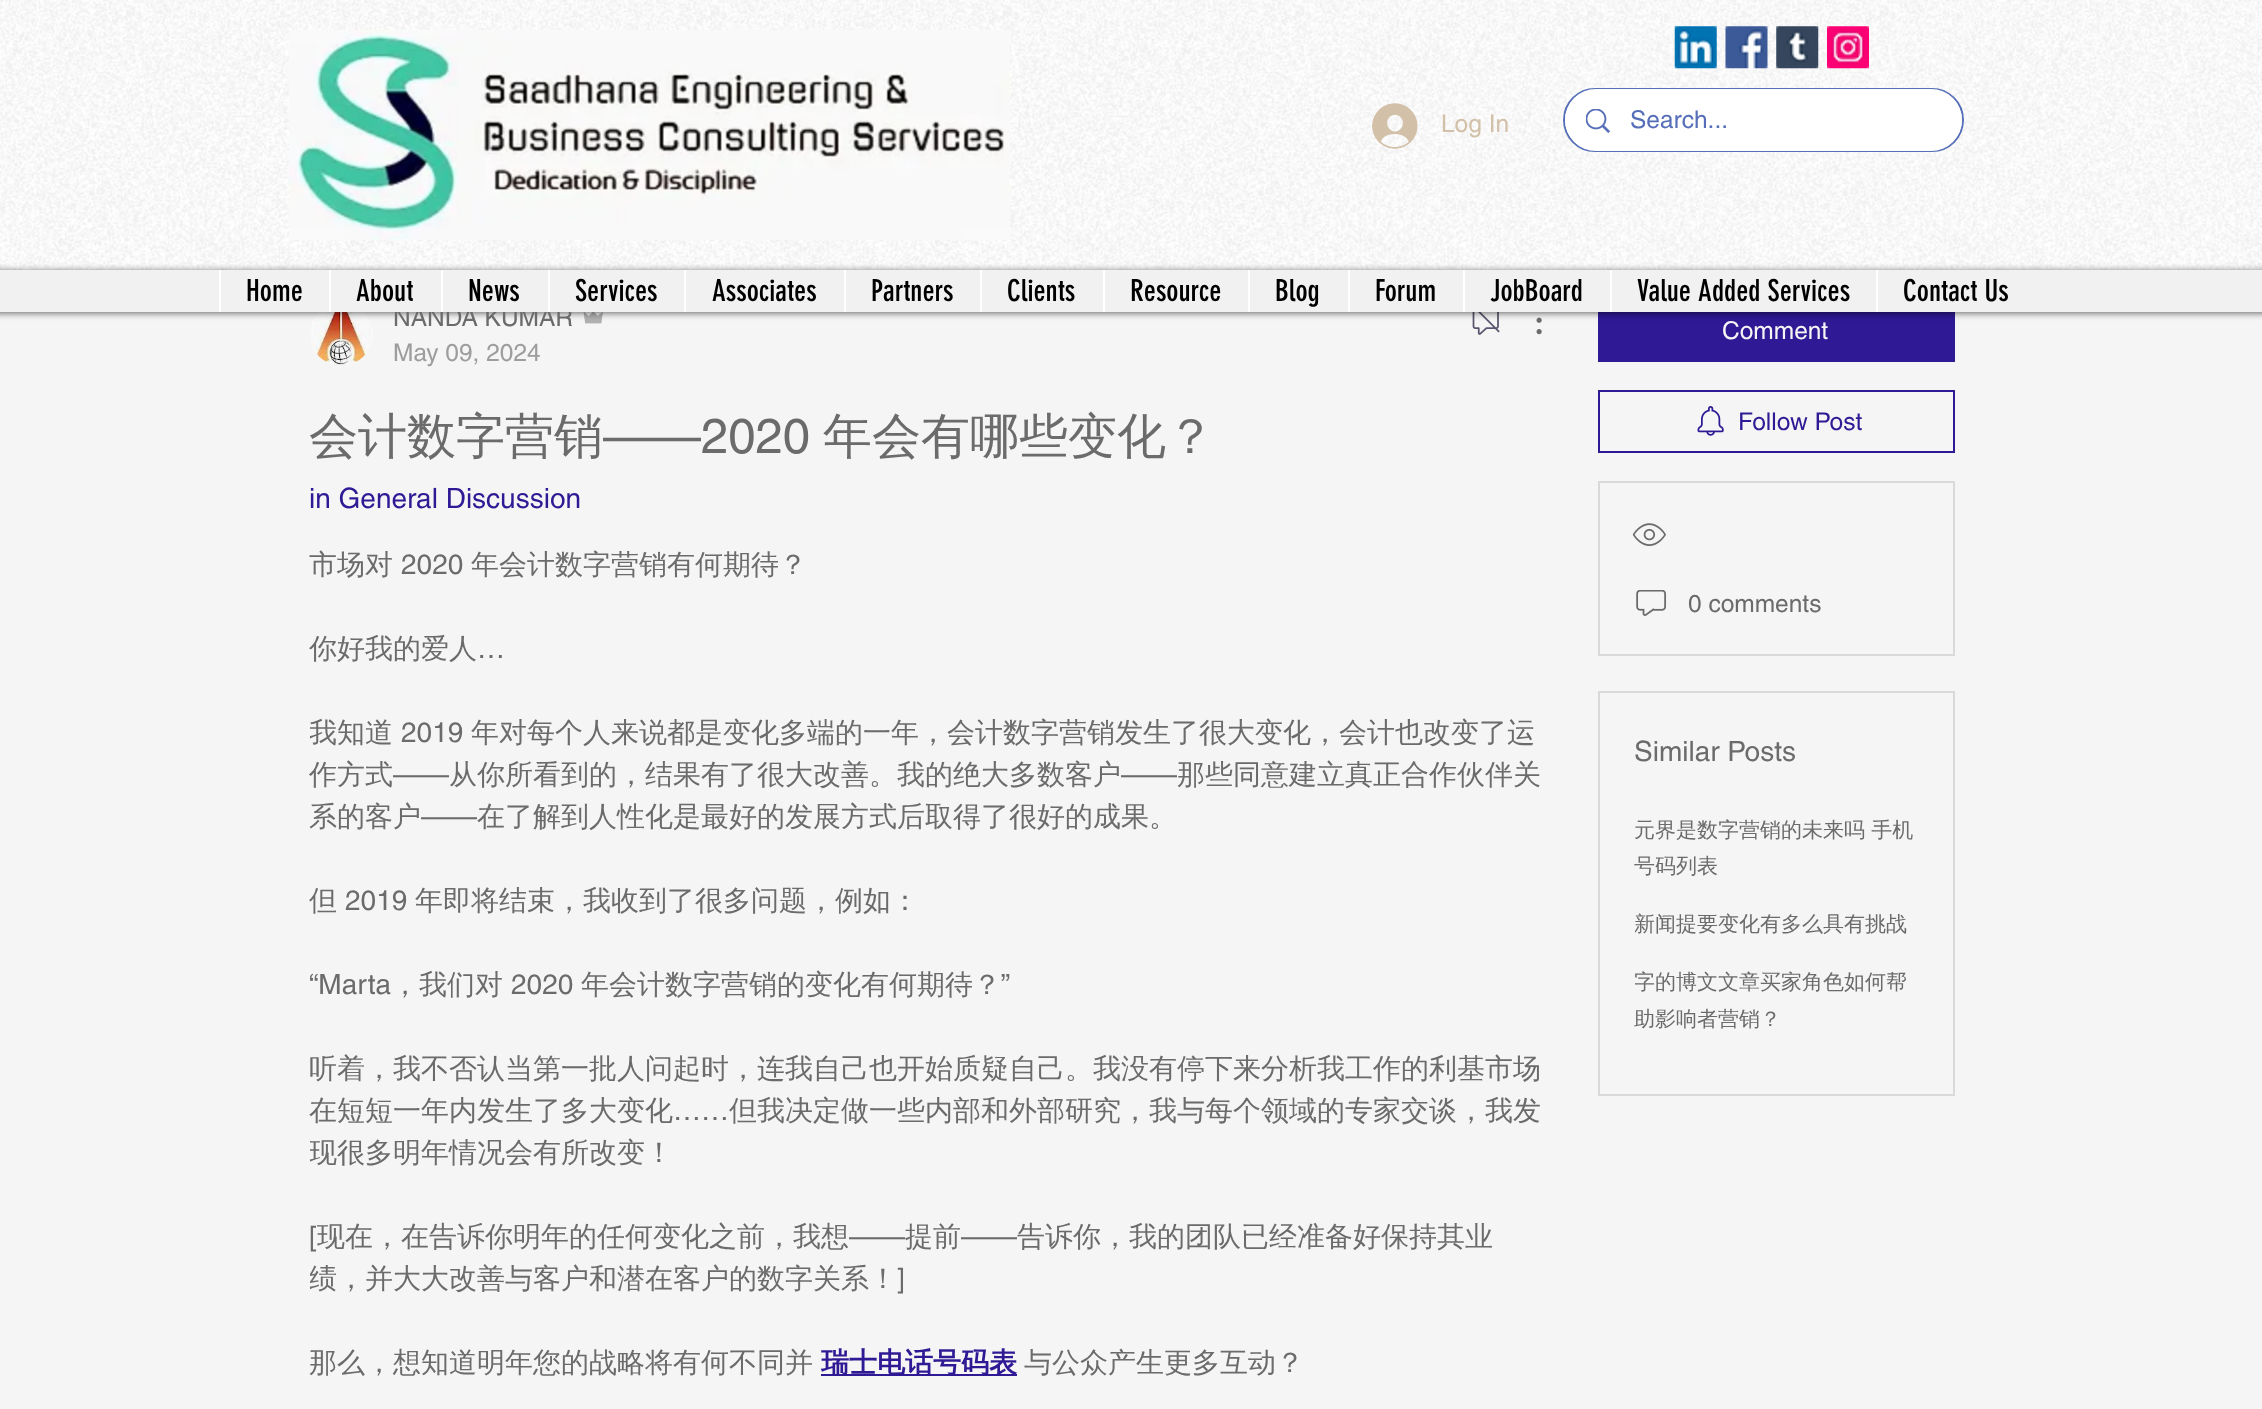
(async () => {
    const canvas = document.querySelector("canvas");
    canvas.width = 2262;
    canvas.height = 1409;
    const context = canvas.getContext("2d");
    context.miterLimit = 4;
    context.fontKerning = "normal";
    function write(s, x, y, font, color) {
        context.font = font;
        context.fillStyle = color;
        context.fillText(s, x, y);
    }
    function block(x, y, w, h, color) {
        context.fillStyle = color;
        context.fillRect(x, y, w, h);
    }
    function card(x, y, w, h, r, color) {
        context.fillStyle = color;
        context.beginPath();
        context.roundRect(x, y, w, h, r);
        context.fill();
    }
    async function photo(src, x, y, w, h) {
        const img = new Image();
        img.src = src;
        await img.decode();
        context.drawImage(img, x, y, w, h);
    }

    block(0, 0, 2262, 1409, "rgb(245, 245, 245)");
    block(0, 0, 2262, 270, "rgb(255, 255, 255)");
    await photo("media/1.png", 0, 0, 2262, 270);
    await photo("media/2.png", 289, 30, 721, 210);
    await photo("media/3.png", 1674, 26, 43, 43);
    await photo("media/4.png", 1725, 26, 43, 43);
    await photo("media/5.png", 1776, 26, 43, 43);
    await photo("media/6.png", 1827, 26, 42, 43);
    await photo("media/7.png", 1372, 103, 46, 46);
    write("Log In", 1441, 132, "24.5px helvetica", "rgb(210, 192, 168)");
    context.beginPath();
    context.roundRect(1564, 89, 399, 62, 31);
    context.strokeStyle = "rgb(86, 111, 184)";
    context.lineWidth = 2;
    context.stroke();
    card(1565, 89, 397, 62, 31, "rgb(255, 255, 255)");
    await photo("media/8.png", 1586, 109, 24, 24);
    write("Search...", 1630, 128, "24.5px helvetica", "rgb(86, 111, 184)");
    await photo("media/9.png", 310, 312, 63, 53);
    await photo("media/10.png", 583, 312, 20, 12);
    await photo("media/11.png", 1472, 312, 28, 23);
    await photo("media/12.png", 1536, 317, 6, 18);
    block(1598, 312, 357, 50, "rgb(47, 25, 148)");
    context.fillStyle = "rgba(0, 0, 0, 0.6)";
    context.filter = "blur(3.5px)";
    context.beginPath();
    context.rect(-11, 271, 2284, 42);
    context.fill();
    context.filter = "none";
    write("NANDA KUMAR", 393, 326, "24.5px helvetica", "rgb(107, 107, 107)");
    block(0, 270, 2262, 42, "rgb(241, 241, 241)");
    block(219, 270, 2, 42, "rgb(255, 255, 255)");
    write("Home", 246, 301, "29.75px 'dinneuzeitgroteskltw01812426'", "rgb(0, 0, 0)");
    block(329, 270, 2, 42, "rgb(255, 255, 255)");
    write("About", 356, 301, "29.75px 'dinneuzeitgroteskltw01812426'", "rgb(0, 0, 0)");
    block(441, 270, 2, 42, "rgb(255, 255, 255)");
    write("News", 468, 301, "29.75px 'dinneuzeitgroteskltw01812426'", "rgb(0, 0, 0)");
    block(548, 270, 2, 42, "rgb(255, 255, 255)");
    write("Services", 575, 301, "29.75px 'dinneuzeitgroteskltw01812426'", "rgb(0, 0, 0)");
    block(684, 270, 2, 42, "rgb(255, 255, 255)");
    write("Associates", 712, 301, "29.75px 'dinneuzeitgroteskltw01812426'", "rgb(0, 0, 0)");
    block(844, 270, 2, 42, "rgb(255, 255, 255)");
    write("Partners", 871, 301, "29.75px 'dinneuzeitgroteskltw01812426'", "rgb(0, 0, 0)");
    block(980, 270, 2, 42, "rgb(255, 255, 255)");
    write("Clients", 1007, 301, "29.75px 'dinneuzeitgroteskltw01812426'", "rgb(0, 0, 0)");
    block(1103, 270, 2, 42, "rgb(255, 255, 255)");
    write("Resource", 1130, 301, "29.75px 'dinneuzeitgroteskltw01812426'", "rgb(0, 0, 0)");
    block(1248, 270, 2, 42, "rgb(255, 255, 255)");
    write("Blog", 1275, 301, "29.75px 'dinneuzeitgroteskltw01812426'", "rgb(0, 0, 0)");
    block(1348, 270, 2, 42, "rgb(255, 255, 255)");
    write("Forum", 1375, 301, "29.75px 'dinneuzeitgroteskltw01812426'", "rgb(0, 0, 0)");
    block(1463, 270, 2, 42, "rgb(255, 255, 255)");
    write("JobBoard", 1490, 301, "29.75px 'dinneuzeitgroteskltw01812426'", "rgb(0, 0, 0)");
    block(1610, 270, 2, 42, "rgb(255, 255, 255)");
    write("Value Added Services", 1637, 301, "29.75px 'dinneuzeitgroteskltw01812426'", "rgb(0, 0, 0)");
    block(1876, 270, 2, 42, "rgb(255, 255, 255)");
    write("Contact Us", 1903, 301, "29.75px 'dinneuzeitgroteskltw01812426'", "rgb(0, 0, 0)");
    write("May 09, 2024", 393, 361, "24.5px helvetica", "rgb(157, 157, 157)");
    write("会计数字营销", 309, 453, "500 49px WenQuanYi Zen Hei", "rgb(107, 107, 107)");
    write("——2020", 603, 453, "49px helvetica", "rgb(107, 107, 107)");
    write("年会有哪些变化？", 823, 453, "500 49px WenQuanYi Zen Hei", "rgb(107, 107, 107)");
    write("in General Discussion", 309, 508, "28px helvetica", "rgb(47, 25, 148)");
    write("市场对", 309, 574, "500 28px WenQuanYi Zen Hei", "rgb(107, 107, 107)");
    write("2020", 401, 574, "28px helvetica", "rgb(107, 107, 107)");
    write("年会计数字营销有何期待？", 471, 574, "500 28px WenQuanYi Zen Hei", "rgb(107, 107, 107)");
    write("你好我的爱人", 309, 658, "500 28px WenQuanYi Zen Hei", "rgb(107, 107, 107)");
    write("…", 477, 658, "28px helvetica", "rgb(107, 107, 107)");
    context.save();
    context.beginPath();
    context.rect(310, 544, 1232, 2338);
    context.clip();
    write("我知道", 309, 742, "500 28px WenQuanYi Zen Hei", "rgb(107, 107, 107)");
    context.restore();
    write("2019", 401, 742, "28px helvetica", "rgb(107, 107, 107)");
    write("年对每个人来说都是变化多端的一年，会计数字营销发生了很大变化，会计也改变了运", 471, 742, "500 28px WenQuanYi Zen Hei", "rgb(107, 107, 107)");
    write("作方式", 309, 784, "500 28px WenQuanYi Zen Hei", "rgb(107, 107, 107)");
    write("——", 393, 784, "28px helvetica", "rgb(107, 107, 107)");
    write("从你所看到的，结果有了很大改善。我的绝大多数客户", 449, 784, "500 28px WenQuanYi Zen Hei", "rgb(107, 107, 107)");
    write("——", 1121, 784, "28px helvetica", "rgb(107, 107, 107)");
    write("那些同意建立真正合作伙伴关", 1177, 784, "500 28px WenQuanYi Zen Hei", "rgb(107, 107, 107)");
    write("系的客户", 309, 826, "500 28px WenQuanYi Zen Hei", "rgb(107, 107, 107)");
    write("——", 421, 826, "28px helvetica", "rgb(107, 107, 107)");
    write("在了解到人性化是最好的发展方式后取得了很好的成果。", 477, 826, "500 28px WenQuanYi Zen Hei", "rgb(107, 107, 107)");
    write("但", 309, 910, "500 28px WenQuanYi Zen Hei", "rgb(107, 107, 107)");
    write("2019", 345, 910, "28px helvetica", "rgb(107, 107, 107)");
    write("年即将结束，我收到了很多问题，例如：", 415, 910, "500 28px WenQuanYi Zen Hei", "rgb(107, 107, 107)");
    write("“Marta", 309, 994, "28px helvetica", "rgb(107, 107, 107)");
    write("，我们对", 391, 994, "500 28px WenQuanYi Zen Hei", "rgb(107, 107, 107)");
    write("2020", 511, 994, "28px helvetica", "rgb(107, 107, 107)");
    write("年会计数字营销的变化有何期待？", 581, 994, "500 28px WenQuanYi Zen Hei", "rgb(107, 107, 107)");
    write("”", 1001, 994, "28px helvetica", "rgb(107, 107, 107)");
    write("听着，我不否认当第一批人问起时，连我自己也开始质疑自己。我没有停下来分析我工作的利基市场", 309, 1078, "500 28px WenQuanYi Zen Hei", "rgb(107, 107, 107)");
    write("在短短一年内发生了多大变化", 309, 1120, "500 28px WenQuanYi Zen Hei", "rgb(107, 107, 107)");
    write("……", 673, 1120, "28px helvetica", "rgb(107, 107, 107)");
    write("但我决定做一些内部和外部研究，我与每个领域的专家交谈，我发", 729, 1120, "500 28px WenQuanYi Zen Hei", "rgb(107, 107, 107)");
    context.save();
    context.beginPath();
    context.rect(310, 544, 1232, 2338);
    context.clip();
    write("现很多明年情况会有所改变！", 309, 1162, "500 28px WenQuanYi Zen Hei", "rgb(107, 107, 107)");
    context.restore();
    write("[", 309, 1246, "28px helvetica", "rgb(107, 107, 107)");
    write("现在，在告诉你明年的任何变化之前，我想", 317, 1246, "500 28px WenQuanYi Zen Hei", "rgb(107, 107, 107)");
    write("——", 849, 1246, "28px helvetica", "rgb(107, 107, 107)");
    write("提前", 905, 1246, "500 28px WenQuanYi Zen Hei", "rgb(107, 107, 107)");
    write("——", 961, 1246, "28px helvetica", "rgb(107, 107, 107)");
    write("告诉你，我的团队已经准备好保持其业", 1017, 1246, "500 28px WenQuanYi Zen Hei", "rgb(107, 107, 107)");
    context.save();
    context.beginPath();
    context.rect(310, 544, 1232, 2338);
    context.clip();
    write("绩，并大大改善与客户和潜在客户的数字关系！", 309, 1288, "500 28px WenQuanYi Zen Hei", "rgb(107, 107, 107)");
    context.restore();
    write("]", 897, 1288, "28px helvetica", "rgb(107, 107, 107)");
    write("那么，想知道明年您的战略将有何不同并", 309, 1372, "500 28px WenQuanYi Zen Hei", "rgb(107, 107, 107)");
    block(821, 1374, 196, 2, "rgb(47, 25, 148)");
    write("瑞士电话号码表", 821, 1372, "bold 28px WenQuanYi Zen Hei", "rgb(47, 25, 148)");
    write("与公众产生更多互动？", 1024, 1372, "500 28px WenQuanYi Zen Hei", "rgb(107, 107, 107)");
    write("Comment", 1722, 339, "24.5px helvetica", "rgb(245, 245, 245)");
    context.strokeStyle = "rgb(47, 25, 148)";
    context.strokeRect(1599, 391, 355, 61);
    await photo("media/13.png", 1697, 406, 27, 30);
    write("Follow Post", 1738, 430, "24.5px helvetica", "rgb(47, 25, 148)");
    context.strokeStyle = "rgb(217, 217, 217)";
    context.strokeRect(1599, 482, 355, 173);
    await photo("media/14.png", 1632, 523, 34, 23);
    await photo("media/15.png", 1636, 590, 30, 26);
    write("0 comments", 1688, 612, "24.5px helvetica", "rgb(107, 107, 107)");
    context.strokeRect(1599, 692, 355, 403);
    write("Similar Posts", 1634, 761, "28px helvetica", "rgb(107, 107, 107)");
    write("元界是数字营销的未来吗 手机", 1634, 837, "500 21px WenQuanYi Zen Hei", "rgb(107, 107, 107)");
    write("号码列表", 1634, 873, "500 21px WenQuanYi Zen Hei", "rgb(107, 107, 107)");
    context.save();
    context.beginPath();
    context.rect(1635, 907, 283, 36);
    context.clip();
    write("新闻提要变化有多么具有挑战", 1634, 931, "500 21px WenQuanYi Zen Hei", "rgb(107, 107, 107)");
    context.restore();
    context.save();
    context.beginPath();
    context.rect(1635, 964, 283, 74);
    context.clip();
    write("字的博文文章买家角色如何帮", 1634, 989, "500 21px WenQuanYi Zen Hei", "rgb(107, 107, 107)");
    context.restore();
    write("助影响者营销？", 1634, 1026, "500 21px WenQuanYi Zen Hei", "rgb(107, 107, 107)");
})();
